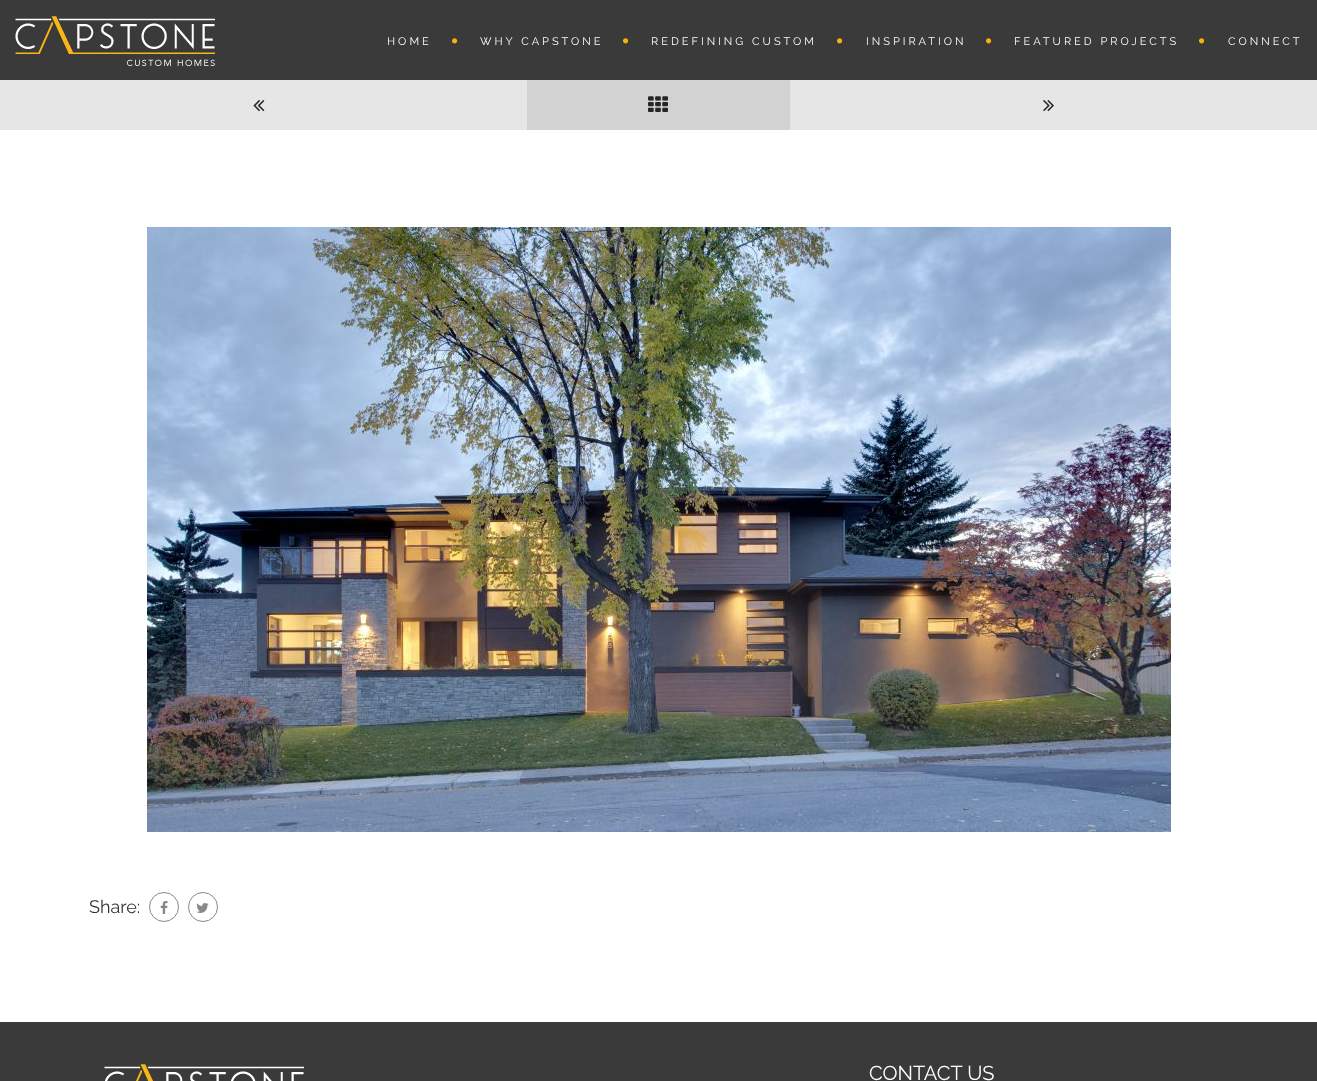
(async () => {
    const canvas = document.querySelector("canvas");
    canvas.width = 1317;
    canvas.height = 1081;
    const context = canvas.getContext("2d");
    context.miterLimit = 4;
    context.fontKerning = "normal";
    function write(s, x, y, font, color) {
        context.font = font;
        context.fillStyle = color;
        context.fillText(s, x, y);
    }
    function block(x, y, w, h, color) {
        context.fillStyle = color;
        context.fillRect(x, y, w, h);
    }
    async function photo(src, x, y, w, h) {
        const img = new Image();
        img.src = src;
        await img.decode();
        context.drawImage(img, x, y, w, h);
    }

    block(0, 0, 1317, 1081, "rgb(255, 255, 255)");
    block(0, 0, 1317, 80, "rgb(58, 58, 58)");
    await photo("media/1.png", 15, 16, 200, 50);
    context.letterSpacing = "3px";
    write("HOME", 387, 45, "100 11px Raleway", "rgb(255, 255, 255)");
    await photo("media/2.png", 452, 38, 6, 6);
    write("WHY CAPSTONE", 480, 45, "100 11px Raleway", "rgb(255, 255, 255)");
    await photo("media/2.png", 623, 38, 6, 6);
    write("REDEFINING CUSTOM", 651, 45, "100 11px Raleway", "rgb(255, 255, 255)");
    await photo("media/2.png", 837, 38, 6, 6);
    write("INSPIRATION", 866, 45, "100 11px Raleway", "rgb(255, 255, 255)");
    await photo("media/2.png", 986, 38, 6, 6);
    write("FEATURED PROJECTS", 1014, 45, "100 11px Raleway", "rgb(255, 255, 255)");
    await photo("media/2.png", 1199, 38, 6, 6);
    write("CONNECT", 1228, 45, "100 11px Raleway", "rgb(255, 255, 255)");
    block(0, 80, 1317, 50, "rgb(230, 230, 230)");
    await photo("media/3.png", 253, 100, 12, 12);
    block(527, 80, 263, 50, "rgb(210, 210, 210)");
    await photo("media/4.png", 648, 96, 20, 16);
    await photo("media/5.png", 1043, 100, 11, 12);
    await photo("media/6.png", 147, 227, 1024, 605);
    context.letterSpacing = "0px";
    write("Share:", 89, 913, "100 18px Raleway", "rgb(51, 51, 51)");
    context.beginPath();
    context.arc(164, 907, 14.5, 0, Math.PI * 2);
    context.strokeStyle = "rgb(136, 136, 136)";
    context.stroke();
    await photo("media/7.png", 160, 901, 8, 13);
    context.beginPath();
    context.arc(203, 907, 14.5, 0, Math.PI * 2);
    context.stroke();
    await photo("media/8.png", 196, 903, 13, 10);
    block(0, 1022, 1317, 59, "rgb(58, 58, 58)");
    await photo("media/9.png", 104, 1064, 200, 17);
    write("CONTACT US", 869, 1080, "100 20px Raleway", "rgb(255, 255, 255)");
})();
